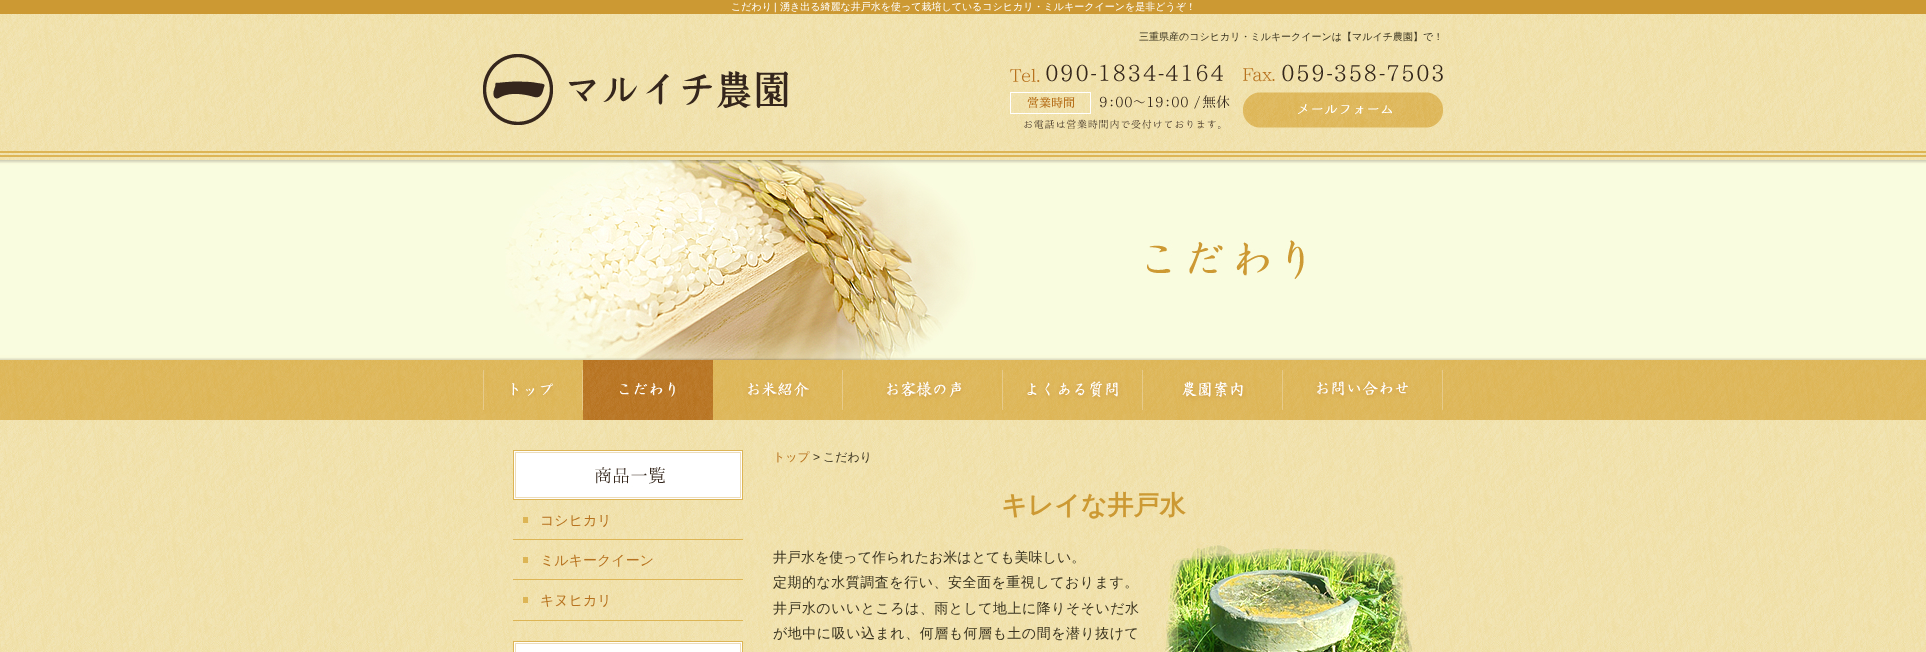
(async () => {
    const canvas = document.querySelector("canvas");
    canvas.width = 1926;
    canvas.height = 652;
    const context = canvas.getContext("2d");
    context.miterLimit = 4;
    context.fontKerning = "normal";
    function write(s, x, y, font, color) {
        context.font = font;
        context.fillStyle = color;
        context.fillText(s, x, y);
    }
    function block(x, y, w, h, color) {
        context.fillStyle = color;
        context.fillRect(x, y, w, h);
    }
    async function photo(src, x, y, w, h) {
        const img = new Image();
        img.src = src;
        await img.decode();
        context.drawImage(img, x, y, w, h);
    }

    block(0, 0, 1926, 652, "rgb(204, 153, 51)");
    write("こだわり", 731, 10, "500 10px WenQuanYi Zen Hei", "rgb(255, 255, 255)");
    write("|", 774, 10, "10px Liberation Sans", "rgb(255, 255, 255)");
    write("湧き出る綺麗な井戸水を使って栽培しているコシヒカリ・ミルキークイーンを是非どうぞ！", 780, 10, "500 10px WenQuanYi Zen Hei", "rgb(255, 255, 255)");
    await photo("media/1.png", 0, 14, 1926, 638);
    await photo("media/2.png", 0, 151, 1926, 9);
    write("三重県産のコシヒカリ・ミルキークイーンは【マルイチ農園】で！", 1139, 40, "500 10px WenQuanYi Zen Hei", "rgb(57, 51, 31)");
    await photo("media/3.png", 1010, 64, 433, 18);
    await photo("media/4.png", 1010, 92, 220, 37);
    await photo("media/5.png", 1243, 92, 200, 36);
    await photo("media/6.png", 483, 54, 305, 71);
    await photo("media/7.png", 0, 160, 1926, 200);
    await photo("media/8.png", 505, 160, 799, 200);
    await photo("media/9.png", 0, 360, 1926, 60);
    await photo("media/10.png", 483, 360, 100, 60);
    await photo("media/11.png", 583, 360, 130, 60);
    await photo("media/12.png", 713, 360, 130, 60);
    await photo("media/13.png", 843, 360, 160, 60);
    await photo("media/14.png", 1003, 360, 140, 60);
    await photo("media/15.png", 1143, 360, 140, 60);
    await photo("media/16.png", 1283, 360, 160, 60);
    await photo("media/17.png", 513, 450, 230, 50);
    block(513, 539, 230, 1, "rgb(221, 181, 85)");
    block(523, 517, 5, 6, "rgb(221, 181, 85)");
    write("コシヒカリ", 540, 525, "500 14px WenQuanYi Zen Hei", "rgb(183, 114, 30)");
    block(513, 579, 230, 1, "rgb(221, 181, 85)");
    block(523, 557, 5, 6, "rgb(221, 181, 85)");
    write("ミルキークイーン", 540, 565, "500 14px WenQuanYi Zen Hei", "rgb(183, 114, 30)");
    block(513, 620, 230, 1, "rgb(221, 181, 85)");
    block(523, 597, 5, 6, "rgb(221, 181, 85)");
    write("キヌヒカリ", 540, 605, "500 14px WenQuanYi Zen Hei", "rgb(183, 114, 30)");
    await photo("media/18.png", 513, 641, 230, 11);
    write("トップ", 773, 461, "500 12px WenQuanYi Zen Hei", "rgb(183, 114, 30)");
    write(">", 813, 461, "12px Liberation Sans", "rgb(57, 51, 31)");
    write("こだわり", 823, 461, "500 12px WenQuanYi Zen Hei", "rgb(57, 51, 31)");
    write("キレイな井戸水", 1001, 514, "bold 26px WenQuanYi Zen Hei", "rgb(204, 153, 51)");
    write("井戸水を使って作られたお米はとても美味しい。", 773, 562, "500 14px WenQuanYi Zen Hei", "rgb(57, 51, 31)");
    context.letterSpacing = "0.5px";
    write("定期的な水質調査を行い、安全面を重視しております。", 773, 587, "500 14px WenQuanYi Zen Hei", "rgb(57, 51, 31)");
    context.letterSpacing = "0.45px";
    write("井戸水のいいところは、雨として地上に降りそそいだ水", 773, 613, "500 14px WenQuanYi Zen Hei", "rgb(57, 51, 31)");
    context.letterSpacing = "0.5px";
    write("が地中に吸い込まれ、何層も何層も土の間を潜り抜けて", 773, 638, "500 14px WenQuanYi Zen Hei", "rgb(57, 51, 31)");
    await photo("media/19.png", 1165, 545, 248, 107);
})();
